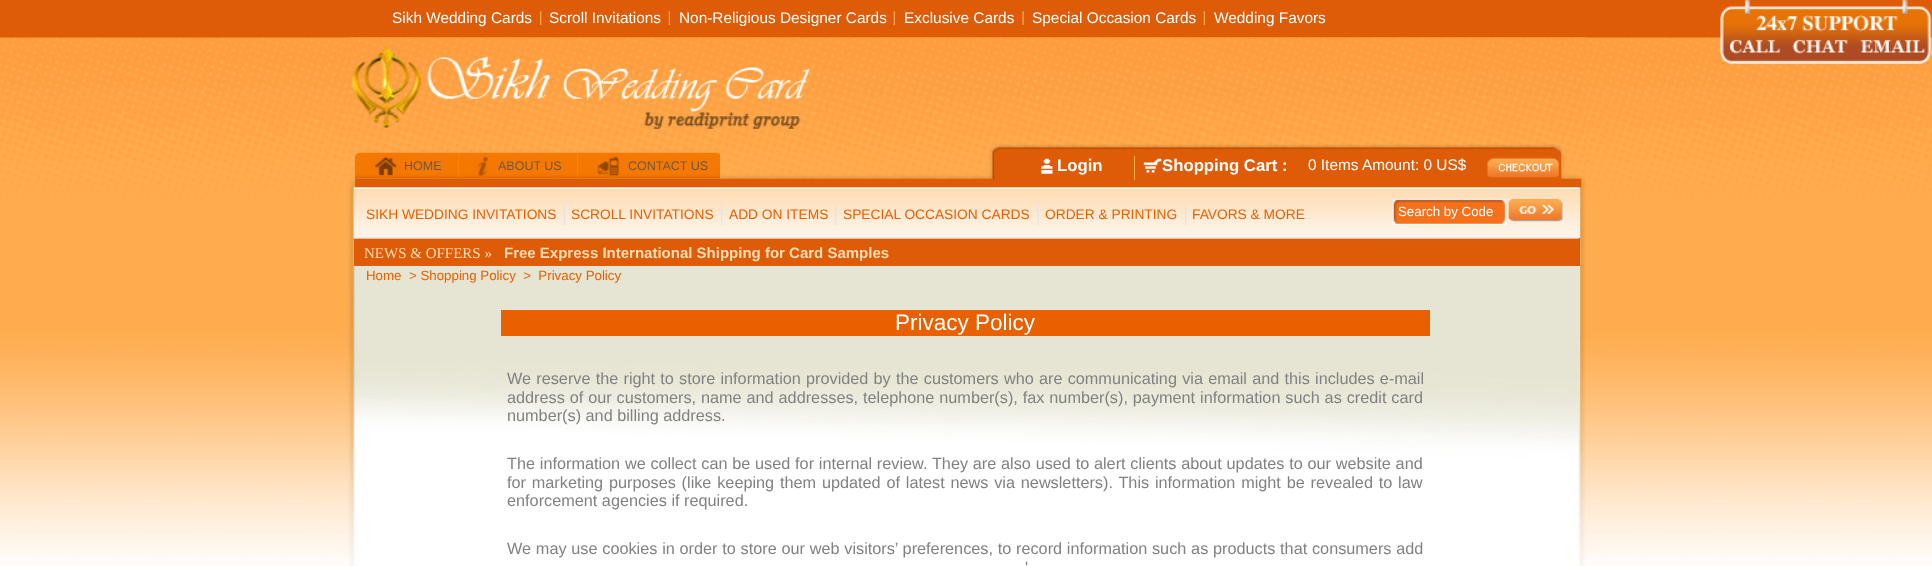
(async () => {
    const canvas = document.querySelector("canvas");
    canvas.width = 1932;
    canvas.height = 566;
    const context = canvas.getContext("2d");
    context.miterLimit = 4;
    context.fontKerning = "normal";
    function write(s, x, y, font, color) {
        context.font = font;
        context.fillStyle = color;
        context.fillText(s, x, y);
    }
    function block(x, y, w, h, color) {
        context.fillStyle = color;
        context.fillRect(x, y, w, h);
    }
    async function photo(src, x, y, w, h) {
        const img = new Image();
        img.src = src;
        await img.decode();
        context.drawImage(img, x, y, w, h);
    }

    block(0, 0, 1932, 566, "rgb(255, 255, 255)");
    await photo("media/1.png", 0, 0, 1932, 566);
    write("Sikh Wedding Cards", 392, 23, "15.4px Liberation Sans", "rgb(255, 255, 255)");
    await photo("media/2.png", 540, 11, 2, 14);
    write("Scroll Invitations", 549, 23, "15.4px Liberation Sans", "rgb(255, 255, 255)");
    await photo("media/3.png", 668, 11, 2, 14);
    context.save();
    context.beginPath();
    context.rect(391, 9, 1025, 17);
    context.clip();
    write("Non-Religious Designer Cards", 679, 23, "15.4px Liberation Sans", "rgb(255, 255, 255)");
    context.restore();
    await photo("media/3.png", 893, 11, 2, 14);
    write("Exclusive Cards", 904, 23, "15.4px Liberation Sans", "rgb(255, 255, 255)");
    await photo("media/4.png", 1022, 11, 2, 14);
    write("Special Occasion Cards", 1032, 23, "15.4px Liberation Sans", "rgb(255, 255, 255)");
    await photo("media/3.png", 1203, 11, 2, 14);
    write("Wedding Favors", 1214, 23, "15.4px Liberation Sans", "rgb(255, 255, 255)");
    await photo("media/20.png", 347, 187, 1239, 379);
    await photo("media/6.png", 347, 37, 1240, 151);
    await photo("media/5.png", 427, 56, 384, 73);
    await photo("media/7.png", 355, 152, 104, 27);
    write("HOME", 404, 170, "12.5px Liberation Sans", "rgb(106, 87, 73)");
    await photo("media/8.png", 458, 152, 120, 27);
    write("ABOUT US", 498, 170, "12.5px Liberation Sans", "rgb(106, 87, 73)");
    await photo("media/9.png", 577, 152, 143, 27);
    write("CONTACT US", 628, 170, "12.5px Liberation Sans", "rgb(106, 87, 73)");
    block(1134, 156, 1, 24, "rgb(255, 172, 78)");
    await photo("media/10.png", 1041, 158, 12, 16);
    write("Login", 1057, 171, "bold 16.75px Liberation Sans", "rgb(255, 255, 255)");
    await photo("media/11.png", 1143, 158, 19, 15);
    write("Shopping Cart :", 1162, 171, "bold 16.75px Liberation Sans", "rgb(255, 255, 255)");
    write("0 Items Amount: 0 US$", 1308, 170, "15.4px Liberation Sans", "rgb(255, 255, 255)");
    await photo("media/12.png", 1487, 157, 72, 21);
    block(354, 238, 1226, 28, "rgb(222, 92, 7)");
    await photo("media/13.png", 353, 187, 1226, 52);
    write("SIKH WEDDING INVITATIONS", 366, 219, "13.75px Liberation Sans", "rgb(233, 96, 0)");
    await photo("media/14.png", 563, 202, 2, 23);
    write("SCROLL INVITATIONS", 571, 219, "13.75px Liberation Sans", "rgb(233, 96, 0)");
    await photo("media/15.png", 721, 202, 2, 23);
    write("ADD ON ITEMS", 729, 219, "13.75px Liberation Sans", "rgb(233, 96, 0)");
    await photo("media/16.png", 835, 202, 2, 23);
    write("SPECIAL OCCASION CARDS", 843, 219, "13.75px Liberation Sans", "rgb(233, 96, 0)");
    await photo("media/17.png", 1037, 202, 2, 23);
    write("ORDER & PRINTING", 1045, 219, "13.75px Liberation Sans", "rgb(233, 96, 0)");
    await photo("media/16.png", 1185, 202, 2, 23);
    write("FAVORS & MORE", 1192, 219, "13.75px Liberation Sans", "rgb(233, 96, 0)");
    await photo("media/18.png", 1392, 198, 115, 27);
    write("Search by Code", 1398, 216, "13.3px Liberation Sans", "rgb(255, 255, 255)");
    await photo("media/19.png", 1508, 198, 55, 24);
    write("NEWS & OFFERS »", 364, 258, "15px Liberation Serif", "rgb(255, 221, 182)");
    write("Free Express International Shipping for Card Samples", 504, 258, "bold 15px Liberation Sans", "rgb(255, 221, 182)");
    write("Home", 366, 280, "13.3px Liberation Sans", "rgb(233, 96, 0)");
    write("> Shopping Policy  >  Privacy Policy", 409, 280, "13.3px Liberation Sans", "rgb(233, 96, 0)");
    block(501, 310, 929, 26, "rgb(233, 96, 0)");
    write("Privacy Policy", 895, 330, "22.5px Liberation Sans", "rgb(255, 255, 255)");
    context.wordSpacing = "0.7px";
    write("We reserve the right to store information provided by the customers who are communicating via email and this includes e-mail", 507, 384, "16.25px Liberation Sans", "rgb(129, 129, 129)");
    context.wordSpacing = "0.4px";
    write("address of our customers, name and addresses, telephone number(s), fax number(s), payment information such as credit card", 507, 403, "16.25px Liberation Sans", "rgb(129, 129, 129)");
    context.wordSpacing = "0px";
    write("number(s) and billing address.", 507, 421, "16.25px Liberation Sans", "rgb(129, 129, 129)");
    context.wordSpacing = "0.25px";
    write("The information we collect can be used for internal review. They are also used to alert clients about updates to our website and", 507, 469, "16.25px Liberation Sans", "rgb(129, 129, 129)");
    context.wordSpacing = "1.3px";
    write("for marketing purposes (like keeping them updated of latest news via newsletters). This information might be revealed to law", 507, 488, "16.25px Liberation Sans", "rgb(129, 129, 129)");
    context.wordSpacing = "0px";
    write("enforcement agencies if required.", 507, 506, "16.25px Liberation Sans", "rgb(129, 129, 129)");
    context.wordSpacing = "0.25px";
    write("We may use cookies in order to store our web visitors’ preferences, to record information such as products that consumers add", 507, 554, "16.25px Liberation Sans", "rgb(129, 129, 129)");
    context.wordSpacing = "1px";
    write("'", 1025, 573, "16.25px Liberation Sans", "rgb(129, 129, 129)");
    await photo("media/21.png", 1720, 0, 212, 64);
})();
